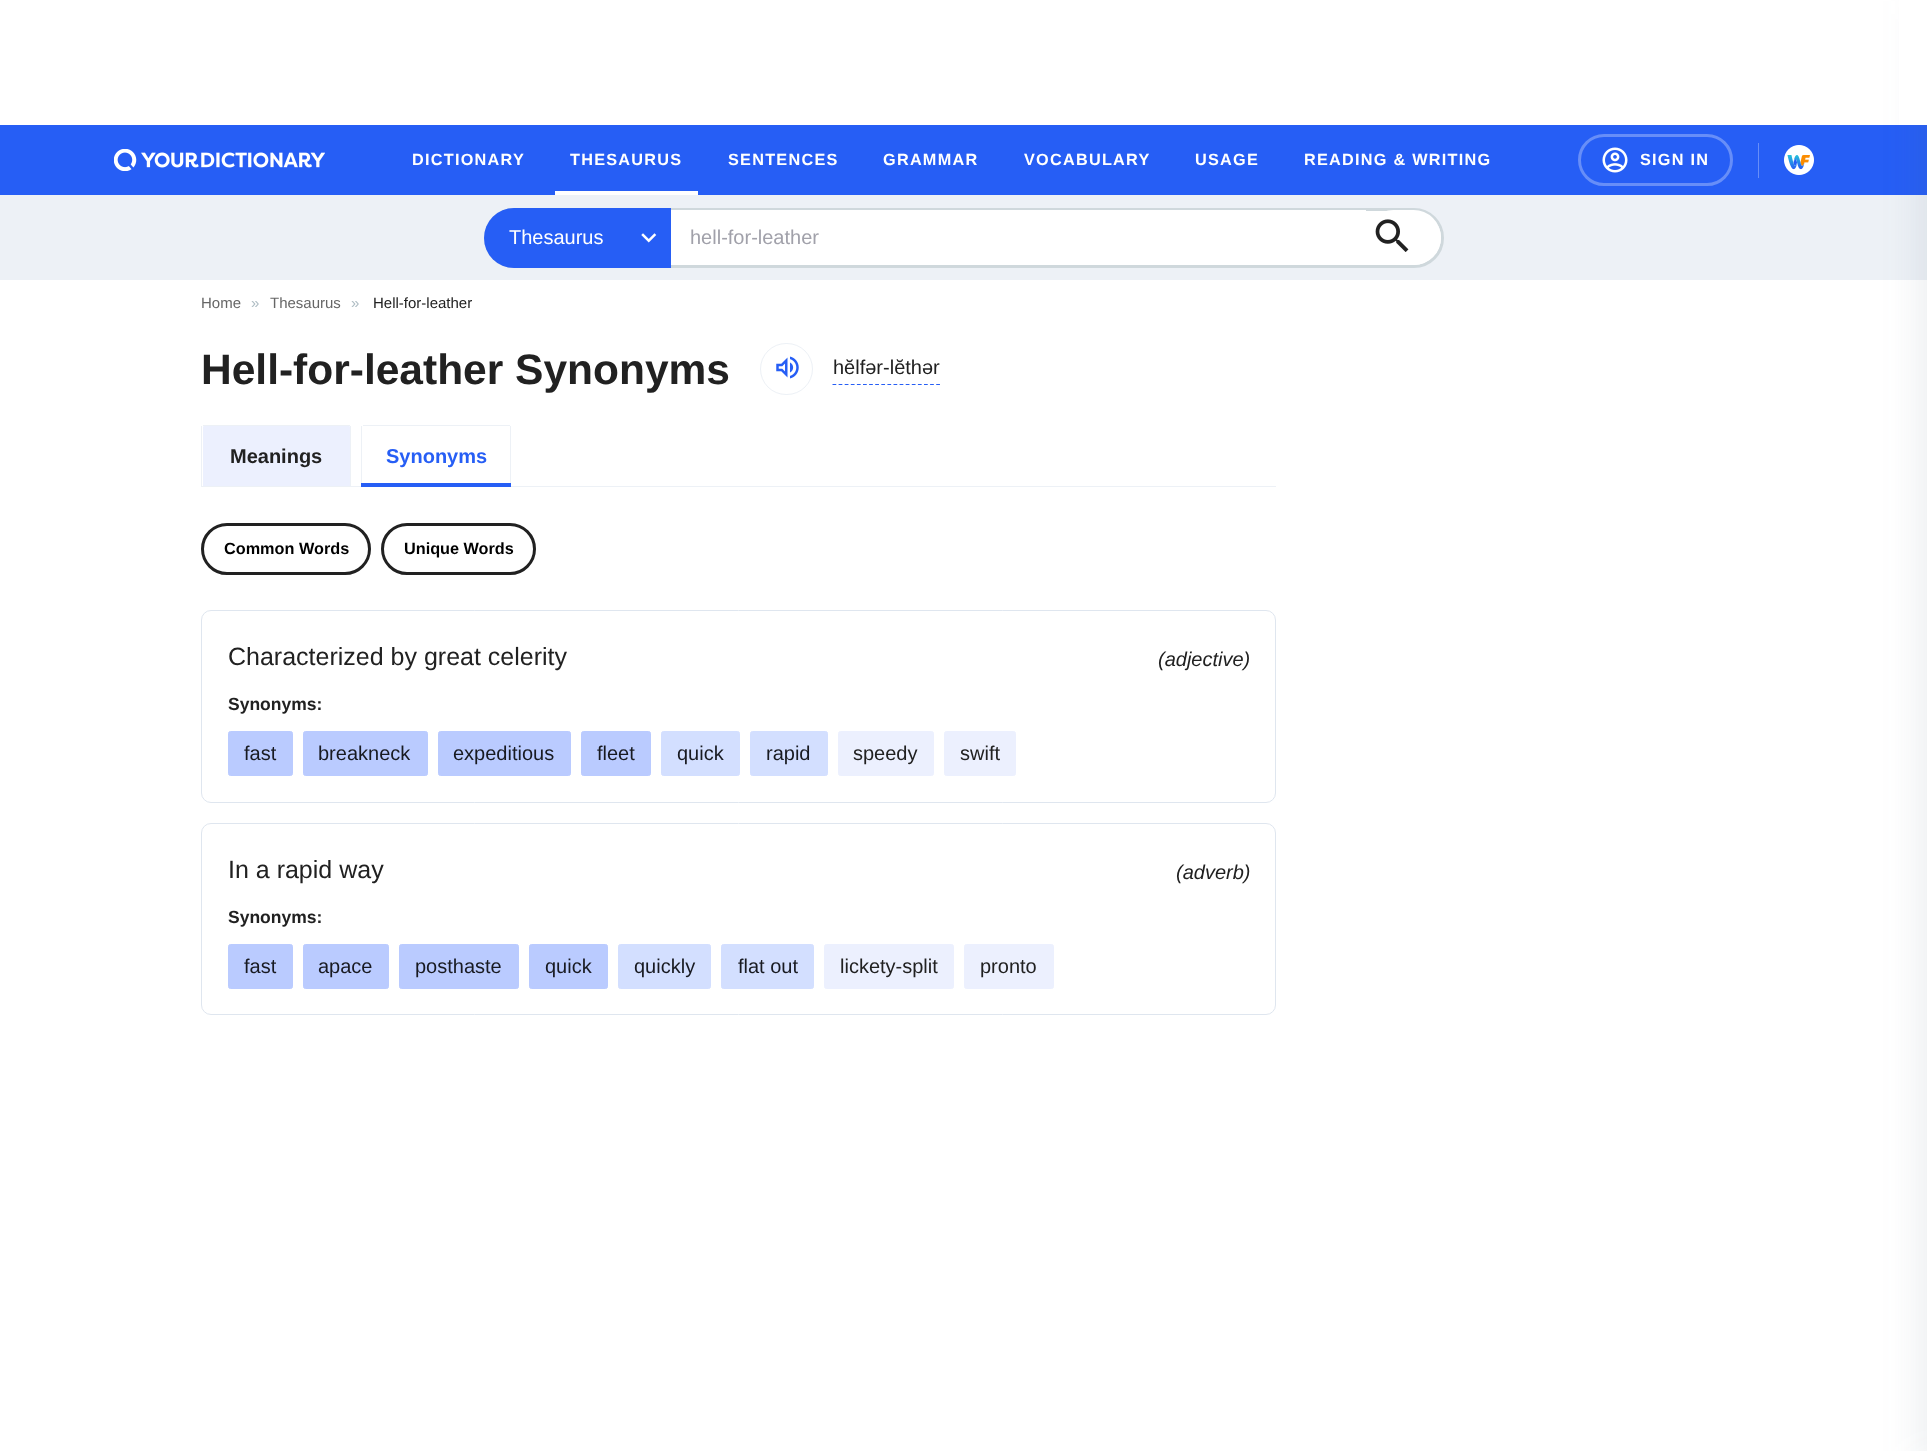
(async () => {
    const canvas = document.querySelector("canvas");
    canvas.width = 1927;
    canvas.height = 1451;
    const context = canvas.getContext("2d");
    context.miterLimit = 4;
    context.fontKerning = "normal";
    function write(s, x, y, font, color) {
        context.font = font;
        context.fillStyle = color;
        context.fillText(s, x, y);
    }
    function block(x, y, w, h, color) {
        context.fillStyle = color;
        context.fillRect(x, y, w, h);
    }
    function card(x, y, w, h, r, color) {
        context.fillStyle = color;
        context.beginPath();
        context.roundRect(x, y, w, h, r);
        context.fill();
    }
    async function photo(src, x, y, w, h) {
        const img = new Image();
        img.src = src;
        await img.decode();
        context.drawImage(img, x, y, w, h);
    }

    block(0, 0, 1927, 1451, "rgb(255, 255, 255)");
    block(0, 125, 1927, 70, "rgb(38, 94, 245)");
    block(0, 195, 1927, 85, "rgb(237, 241, 246)");
    context.fillStyle = "rgba(84, 110, 122, 0.12)";
    context.filter = "blur(19px)";
    context.beginPath();
    context.rect(1921, 1, 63, 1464);
    context.fill();
    context.filter = "none";
    block(1899, 0, 28, 125, "rgb(255, 255, 255)");
    await photo("media/1.png", 114, 149, 211, 22);
    context.letterSpacing = "1.25px";
    write("DICTIONARY", 412, 165, "bold 16.25px Liberation Sans", "rgb(255, 255, 255)");
    write("THESAURUS", 570, 165, "bold 16.25px Liberation Sans", "rgb(255, 255, 255)");
    block(555, 191, 143, 4, "rgb(255, 255, 255)");
    write("SENTENCES", 728, 165, "bold 16.25px Liberation Sans", "rgb(255, 255, 255)");
    write("GRAMMAR", 883, 165, "bold 16.25px Liberation Sans", "rgb(255, 255, 255)");
    write("VOCABULARY", 1024, 165, "bold 16.25px Liberation Sans", "rgb(255, 255, 255)");
    write("USAGE", 1195, 165, "bold 16.25px Liberation Sans", "rgb(255, 255, 255)");
    write("READING & WRITING", 1304, 165, "bold 16.25px Liberation Sans", "rgb(255, 255, 255)");
    context.beginPath();
    context.roundRect(1579.5, 135.5, 152, 49, 24.5);
    context.strokeStyle = "rgb(103, 142, 248)";
    context.lineWidth = 3;
    context.stroke();
    await photo("media/2.png", 1602, 147, 26, 26);
    write("SIGN IN", 1640, 165, "bold 16.25px Liberation Sans", "rgb(255, 255, 255)");
    block(1758, 143, 1, 35, "rgb(103, 142, 248)");
    await photo("media/3.png", 1784, 145, 30, 30);
    context.fillStyle = "rgb(255, 255, 255)";
    context.beginPath();
    context.roundRect(485.5, 209.5, 957, 57, 28.5);
    context.fill();
    context.strokeStyle = "rgb(207, 216, 220)";
    context.stroke();
    context.fillStyle = "rgb(38, 94, 245)";
    context.beginPath();
    context.roundRect(484, 208, 187, 60, [30, 0, 0, 30]);
    context.fill();
    context.letterSpacing = "0px";
    write("Thesaurus", 509, 244, "20px Liberation Sans", "rgb(255, 255, 255)");
    await photo("media/4.png", 641, 233, 16, 10);
    block(671, 210, 695, 1, "rgb(255, 255, 255)");
    write("hell-for-leather", 690, 244, "20px Liberation Sans", "rgb(161, 161, 170)");
    card(1366, 210, 75, 55, 27.5, "rgb(255, 255, 255)");
    await photo("media/5.png", 1375, 219, 34, 33);
    write("Home", 201, 308, "15px Liberation Sans", "rgb(102, 102, 102)");
    write("»", 251, 308, "15px Liberation Sans", "rgb(176, 190, 197)");
    write("Thesaurus", 270, 308, "15px Liberation Sans", "rgb(102, 102, 102)");
    write("»", 351, 308, "15px Liberation Sans", "rgb(176, 190, 197)");
    write("Hell-for-leather", 373, 308, "15px Liberation Sans", "rgb(33, 33, 33)");
    write("Hell-for-leather Synonyms", 201, 384, "bold 42.5px Liberation Sans", "rgb(33, 33, 33)");
    context.beginPath();
    context.roundRect(760.5, 343.5, 52, 51, 25.5);
    context.strokeStyle = "rgb(237, 241, 246)";
    context.lineWidth = 1;
    context.stroke();
    await photo("media/6.png", 776, 356, 23, 23);
    context.beginPath();
    context.moveTo(832.5, 384.5);
    context.lineTo(940, 384.5);
    context.strokeStyle = "rgb(38, 94, 245)";
    context.lineWidth = 1.2;
    context.setLineDash([3.75, 2.35]);
    context.stroke();
    write("hĕlfər-lĕthər", 833, 374, "20px Liberation Sans", "rgb(33, 33, 33)");
    block(201, 486, 1075, 1, "rgb(237, 241, 246)");
    context.fillStyle = "rgb(236, 240, 254)";
    context.beginPath();
    context.roundRect(203, 426, 147, 60, [1, 1, 0, 0]);
    context.fill();
    block(203, 425, 147, 1, "rgb(237, 241, 246)");
    block(350, 426, 1, 60, "rgb(237, 241, 246)");
    block(201, 426, 1, 60, "rgb(237, 241, 246)");
    write("Meanings", 230, 463, "bold 20px Liberation Sans", "rgb(33, 33, 33)");
    block(363, 425, 147, 1, "rgb(237, 241, 246)");
    block(510, 426, 1, 60, "rgb(237, 241, 246)");
    block(361, 426, 1, 60, "rgb(237, 241, 246)");
    write("Synonyms", 386, 463, "bold 20px Liberation Sans", "rgb(38, 94, 245)");
    block(361, 483, 150, 4, "rgb(38, 94, 245)");
    context.beginPath();
    context.roundRect(202.5, 524.5, 167, 49, 24.5);
    context.strokeStyle = "rgb(33, 33, 33)";
    context.lineWidth = 3;
    context.setLineDash([]);
    context.stroke();
    write("Common Words", 224, 554, "bold 16.25px Liberation Sans", "rgb(0, 0, 0)");
    context.beginPath();
    context.roundRect(382.5, 524.5, 152, 49, 24.5);
    context.stroke();
    write("Unique Words", 404, 554, "bold 16.25px Liberation Sans", "rgb(0, 0, 0)");
    context.beginPath();
    context.roundRect(201.5, 610.5, 1074, 192, 9.5);
    context.strokeStyle = "rgb(223, 230, 239)";
    context.lineWidth = 1;
    context.stroke();
    write("Characterized by great celerity", 228, 665, "25px Liberation Sans", "rgb(33, 33, 33)");
    write("(adjective)", 1158, 666, "italic 20px Liberation Sans", "rgb(33, 33, 33)");
    write("Synonyms:", 228, 710, "bold 17.5px Liberation Sans", "rgb(33, 33, 33)");
    context.fillStyle = "rgb(186, 203, 255)";
    context.beginPath();
    context.roundRect(228.5, 731.5, 64, 44, 2);
    context.fill();
    context.strokeStyle = "rgb(186, 203, 255)";
    context.stroke();
    write("fast", 244, 760, "20px Liberation Sans", "rgb(24, 26, 33)");
    context.fillStyle = "rgb(186, 203, 255)";
    context.beginPath();
    context.roundRect(303.5, 731.5, 124, 44, 2);
    context.fill();
    context.stroke();
    write("breakneck", 318, 760, "20px Liberation Sans", "rgb(24, 26, 33)");
    context.fillStyle = "rgb(186, 203, 255)";
    context.beginPath();
    context.roundRect(438.5, 731.5, 132, 44, 2);
    context.fill();
    context.stroke();
    write("expeditious", 453, 760, "20px Liberation Sans", "rgb(24, 26, 33)");
    context.fillStyle = "rgb(186, 203, 255)";
    context.beginPath();
    context.roundRect(581.5, 731.5, 69, 44, 2);
    context.fill();
    context.stroke();
    write("fleet", 597, 760, "20px Liberation Sans", "rgb(24, 26, 33)");
    context.fillStyle = "rgb(211, 223, 255)";
    context.beginPath();
    context.roundRect(661.5, 731.5, 78, 44, 2);
    context.fill();
    context.strokeStyle = "rgb(211, 223, 255)";
    context.stroke();
    write("quick", 677, 760, "20px Liberation Sans", "rgb(24, 26, 33)");
    context.fillStyle = "rgb(211, 223, 255)";
    context.beginPath();
    context.roundRect(750.5, 731.5, 77, 44, 2);
    context.fill();
    context.stroke();
    write("rapid", 766, 760, "20px Liberation Sans", "rgb(24, 26, 33)");
    context.fillStyle = "rgb(236, 240, 254)";
    context.beginPath();
    context.roundRect(838.5, 731.5, 95, 44, 2);
    context.fill();
    context.strokeStyle = "rgb(236, 240, 254)";
    context.stroke();
    write("speedy", 853, 760, "20px Liberation Sans", "rgb(33, 33, 33)");
    context.fillStyle = "rgb(236, 240, 254)";
    context.beginPath();
    context.roundRect(944.5, 731.5, 71, 44, 2);
    context.fill();
    context.stroke();
    write("swift", 960, 760, "20px Liberation Sans", "rgb(33, 33, 33)");
    context.beginPath();
    context.roundRect(201.5, 823.5, 1074, 191, 9.5);
    context.strokeStyle = "rgb(223, 230, 239)";
    context.stroke();
    write("In a rapid way", 228, 878, "25px Liberation Sans", "rgb(33, 33, 33)");
    write("(adverb)", 1176, 879, "italic 20px Liberation Sans", "rgb(33, 33, 33)");
    write("Synonyms:", 228, 923, "bold 17.5px Liberation Sans", "rgb(33, 33, 33)");
    context.fillStyle = "rgb(186, 203, 255)";
    context.beginPath();
    context.roundRect(228.5, 944.5, 64, 44, 2);
    context.fill();
    context.strokeStyle = "rgb(186, 203, 255)";
    context.stroke();
    write("fast", 244, 973, "20px Liberation Sans", "rgb(24, 26, 33)");
    context.fillStyle = "rgb(186, 203, 255)";
    context.beginPath();
    context.roundRect(303.5, 944.5, 85, 44, 2);
    context.fill();
    context.stroke();
    write("apace", 318, 973, "20px Liberation Sans", "rgb(24, 26, 33)");
    context.fillStyle = "rgb(186, 203, 255)";
    context.beginPath();
    context.roundRect(399.5, 944.5, 119, 44, 2);
    context.fill();
    context.stroke();
    write("posthaste", 415, 973, "20px Liberation Sans", "rgb(24, 26, 33)");
    context.fillStyle = "rgb(186, 203, 255)";
    context.beginPath();
    context.roundRect(529.5, 944.5, 78, 44, 2);
    context.fill();
    context.stroke();
    write("quick", 545, 973, "20px Liberation Sans", "rgb(24, 26, 33)");
    context.fillStyle = "rgb(211, 223, 255)";
    context.beginPath();
    context.roundRect(618.5, 944.5, 92, 44, 2);
    context.fill();
    context.strokeStyle = "rgb(211, 223, 255)";
    context.stroke();
    write("quickly", 634, 973, "20px Liberation Sans", "rgb(24, 26, 33)");
    context.fillStyle = "rgb(211, 223, 255)";
    context.beginPath();
    context.roundRect(721.5, 944.5, 92, 44, 2);
    context.fill();
    context.stroke();
    write("flat out", 738, 973, "20px Liberation Sans", "rgb(24, 26, 33)");
    context.fillStyle = "rgb(236, 240, 254)";
    context.beginPath();
    context.roundRect(824.5, 944.5, 129, 44, 2);
    context.fill();
    context.strokeStyle = "rgb(236, 240, 254)";
    context.stroke();
    write("lickety-split", 840, 973, "20px Liberation Sans", "rgb(33, 33, 33)");
    context.fillStyle = "rgb(236, 240, 254)";
    context.beginPath();
    context.roundRect(964.5, 944.5, 89, 44, 2);
    context.fill();
    context.stroke();
    write("pronto", 980, 973, "20px Liberation Sans", "rgb(33, 33, 33)");
})();
